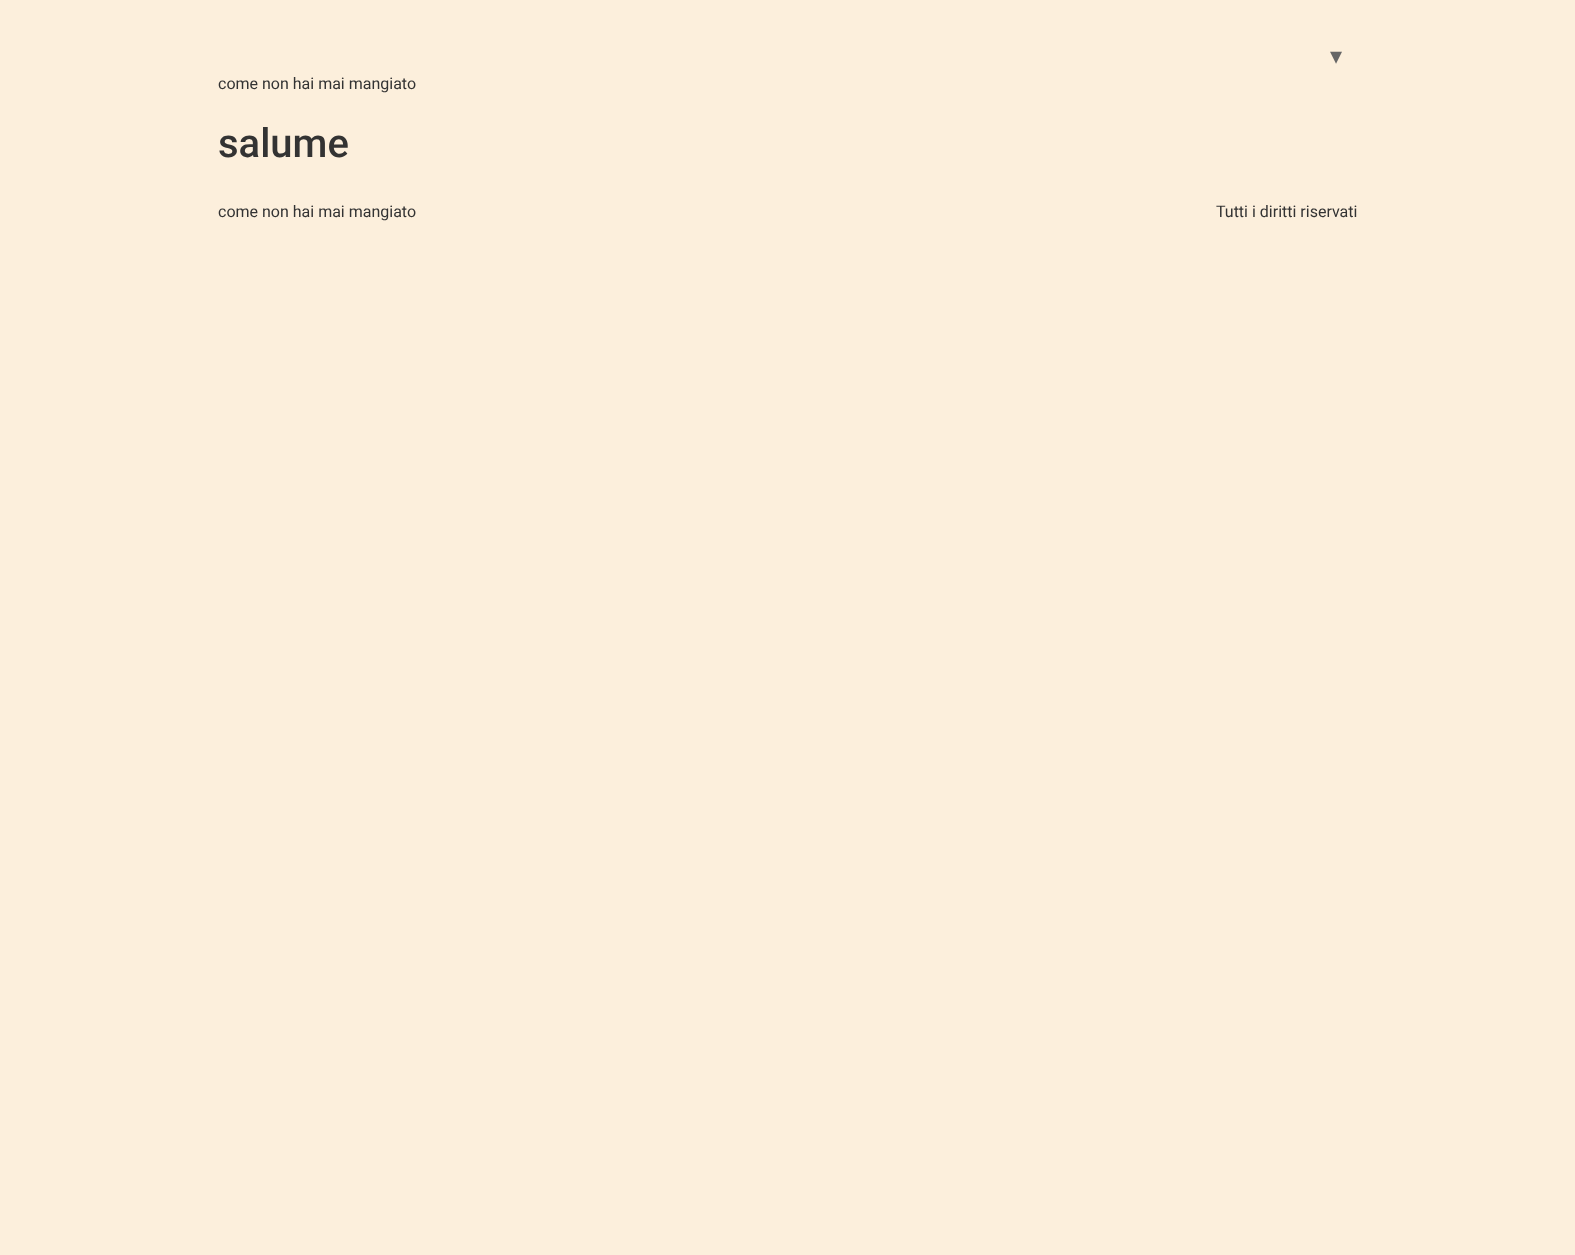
(async () => {
    const canvas = document.querySelector("canvas");
    canvas.width = 1575;
    canvas.height = 1255;
    const context = canvas.getContext("2d");
    context.miterLimit = 4;
    context.fontKerning = "normal";
    function write(s, x, y, font, color) {
        context.font = font;
        context.fillStyle = color;
        context.fillText(s, x, y);
    }
    function block(x, y, w, h, color) {
        context.fillStyle = color;
        context.fillRect(x, y, w, h);
    }

    block(0, 0, 1575, 1255, "rgb(252, 239, 220)");
    write("▾", 1330, 64, "24px DejaVu Sans", "rgb(102, 102, 102)");
    write("come non hai mai mangiato", 218, 89, "16px Roboto", "rgb(51, 51, 51)");
    write("salume", 218, 157, "500 40px Roboto", "rgb(51, 51, 51)");
    write("come non hai mai mangiato", 218, 217, "16px Roboto", "rgb(51, 51, 51)");
    write("Tutti i diritti riservati", 1216, 217, "16px Roboto", "rgb(51, 51, 51)");
})();
